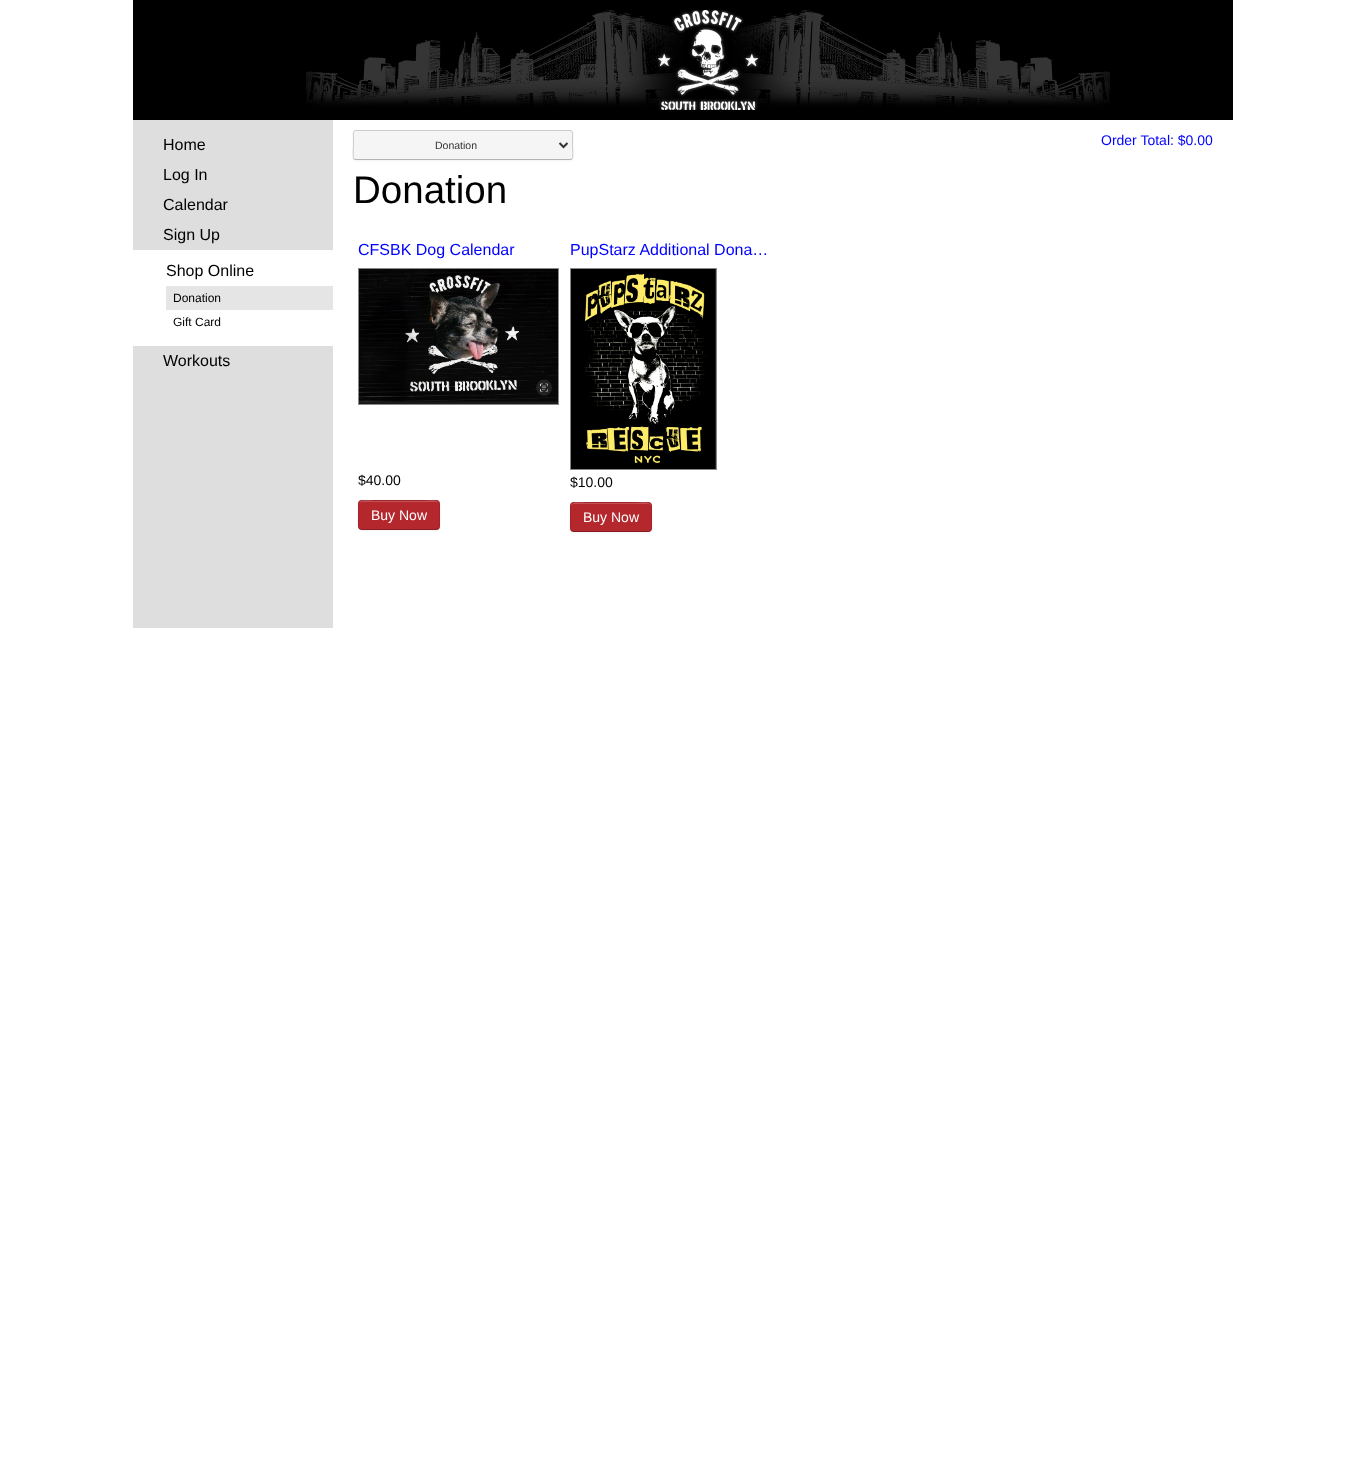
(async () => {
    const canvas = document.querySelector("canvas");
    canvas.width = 1365;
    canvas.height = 1473;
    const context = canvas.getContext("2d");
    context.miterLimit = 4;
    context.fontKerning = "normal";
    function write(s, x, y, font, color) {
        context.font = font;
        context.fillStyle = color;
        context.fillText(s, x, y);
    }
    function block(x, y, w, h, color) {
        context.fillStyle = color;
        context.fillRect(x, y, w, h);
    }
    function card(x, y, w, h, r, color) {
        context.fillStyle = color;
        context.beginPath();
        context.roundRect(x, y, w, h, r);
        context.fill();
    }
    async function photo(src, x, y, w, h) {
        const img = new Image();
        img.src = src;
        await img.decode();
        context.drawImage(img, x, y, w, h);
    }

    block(0, 0, 1365, 1473, "rgb(255, 255, 255)");
    block(133, 0, 1100, 120, "rgb(0, 0, 0)");
    await photo("media/1.png", 306, 10, 804, 100);
    block(133, 120, 200, 508, "rgb(222, 222, 222)");
    write("Home", 163, 150, "16px Liberation Sans", "rgb(0, 0, 0)");
    write("Log In", 163, 180, "16px Liberation Sans", "rgb(0, 0, 0)");
    write("Calendar", 163, 210, "16px Liberation Sans", "rgb(0, 0, 0)");
    write("Sign Up", 163, 240, "16px Liberation Sans", "rgb(0, 0, 0)");
    block(133, 250, 200, 96, "rgb(255, 255, 255)");
    write("Shop Online", 166, 276, "16px Liberation Sans", "rgb(0, 0, 0)");
    block(166, 286, 167, 24, "rgb(229, 229, 229)");
    write("Donation", 173, 302, "12px Liberation Sans", "rgb(0, 0, 0)");
    write("Gift Card", 173, 326, "12px Liberation Sans", "rgb(0, 0, 0)");
    write("Workouts", 163, 366, "16px Liberation Sans", "rgb(0, 0, 0)");
    context.fillStyle = "rgba(0, 0, 0, 0.05)";
    context.filter = "blur(1px)";
    context.beginPath();
    context.roundRect(353, 131, 220, 30, 3);
    context.fill();
    context.filter = "none";
    card(353, 130, 220, 30, 3, "rgb(245, 245, 245)");
    context.beginPath();
    context.moveTo(572, 159);
    context.lineTo(570, 159.5);
    context.lineTo(356, 159.5);
    context.lineTo(354, 159);
    context.strokeStyle = "rgb(179, 179, 179)";
    context.stroke();
    context.beginPath();
    context.moveTo(354, 159);
    context.bezierCurveTo(352.5, 157, 353.5, 147.5, 353.5, 145);
    context.lineTo(353.5, 137);
    context.bezierCurveTo(353.5, 135, 352.5, 130.5, 356, 130.5);
    context.lineTo(570, 130.5);
    context.bezierCurveTo(573.5, 130.5, 572.5, 135, 572.5, 137);
    context.lineTo(572.5, 145);
    context.bezierCurveTo(572.5, 147.5, 573.5, 157, 572, 159);
    context.strokeStyle = "rgb(204, 204, 204)";
    context.stroke();
    context.beginPath();
    context.moveTo(559.5, 143);
    context.lineTo(563.5, 147);
    context.lineTo(567.5, 143);
    context.strokeStyle = "rgb(51, 51, 51)";
    context.lineWidth = 2;
    context.stroke();
    write("Donation", 435, 149, "10.5px Liberation Sans", "rgb(51, 51, 51)");
    write("Order Total: $0.00", 1101, 145, "14px Liberation Sans", "rgb(0, 0, 255)");
    write("Donation", 353, 203, "38.5px Liberation Sans", "rgb(0, 0, 0)");
    write("CFSBK Dog Calendar", 358, 255, "16px Liberation Sans", "rgb(0, 0, 255)");
    context.strokeStyle = "rgb(136, 136, 136)";
    context.lineWidth = 1;
    context.strokeRect(358.5, 268.5, 200, 136);
    await photo("media/2.png", 359, 269, 199, 135);
    write("$40.00", 358, 485, "14px Liberation Sans", "rgb(0, 0, 0)");
    context.fillStyle = "rgba(0, 0, 0, 0.05)";
    context.filter = "blur(1px)";
    context.beginPath();
    context.roundRect(358, 501, 82, 30, 4);
    context.fill();
    context.filter = "none";
    card(358, 500, 82, 30, 4, "rgb(179, 39, 45)");
    context.fillStyle = "rgb(194, 82, 87)";
    context.beginPath();
    context.moveTo(362, 502);
    context.lineTo(436, 502);
    context.bezierCurveTo(438, 502, 439, 503, 439, 505);
    context.bezierCurveTo(439, 498, 428, 501, 424, 501);
    context.lineTo(374, 501);
    context.bezierCurveTo(370, 501, 359, 498, 359, 505);
    context.bezierCurveTo(359, 503, 360, 502, 362, 502);
    context.closePath();
    context.fill();
    context.beginPath();
    context.moveTo(438.5, 528.5);
    context.lineTo(436.5, 529.5);
    context.lineTo(361.5, 529.5);
    context.lineTo(359.5, 528.5);
    context.strokeStyle = "rgba(0, 0, 0, 0.25)";
    context.stroke();
    context.beginPath();
    context.moveTo(359.5, 528.5);
    context.bezierCurveTo(357.5, 526.5, 358.5, 518, 358.5, 515);
    context.bezierCurveTo(358.5, 498, 356.5, 500.5, 374.5, 500.5);
    context.lineTo(423.5, 500.5);
    context.bezierCurveTo(441.5, 500.5, 439.5, 498, 439.5, 515);
    context.bezierCurveTo(439.5, 518, 440.5, 526.5, 438.5, 528.5);
    context.strokeStyle = "rgba(0, 0, 0, 0.1)";
    context.stroke();
    write("Buy Now", 371, 520, "14px Liberation Sans", "rgb(255, 255, 255)");
    write("PupStarz Additional Dona…", 570, 255, "16px Liberation Sans", "rgb(0, 0, 255)");
    context.strokeStyle = "rgb(136, 136, 136)";
    context.strokeRect(570.5, 268.5, 146, 201);
    await photo("media/3.png", 571, 269, 145, 200);
    write("$10.00", 570, 487, "14px Liberation Sans", "rgb(0, 0, 0)");
    context.fillStyle = "rgba(0, 0, 0, 0.05)";
    context.filter = "blur(1px)";
    context.beginPath();
    context.roundRect(570, 503, 82, 30, 4);
    context.fill();
    context.filter = "none";
    card(570, 502, 82, 30, 4, "rgb(179, 39, 45)");
    context.fillStyle = "rgb(194, 82, 87)";
    context.beginPath();
    context.moveTo(574, 504);
    context.lineTo(648, 504);
    context.bezierCurveTo(650, 504, 651, 505, 651, 507);
    context.bezierCurveTo(651, 500, 640, 503, 636, 503);
    context.lineTo(586, 503);
    context.bezierCurveTo(582, 503, 571, 500, 571, 507);
    context.bezierCurveTo(571, 505, 572, 504, 574, 504);
    context.closePath();
    context.fill();
    context.beginPath();
    context.moveTo(650.5, 530.5);
    context.lineTo(648.5, 531.5);
    context.lineTo(573.5, 531.5);
    context.lineTo(571.5, 530.5);
    context.strokeStyle = "rgba(0, 0, 0, 0.25)";
    context.stroke();
    context.beginPath();
    context.moveTo(571.5, 530.5);
    context.bezierCurveTo(569.5, 528.5, 570.5, 520, 570.5, 517);
    context.bezierCurveTo(570.5, 500, 568.5, 502.5, 586.5, 502.5);
    context.lineTo(635.5, 502.5);
    context.bezierCurveTo(653.5, 502.5, 651.5, 500, 651.5, 517);
    context.bezierCurveTo(651.5, 520, 652.5, 528.5, 650.5, 530.5);
    context.strokeStyle = "rgba(0, 0, 0, 0.1)";
    context.stroke();
    write("Buy Now", 583, 522, "14px Liberation Sans", "rgb(255, 255, 255)");
})();
